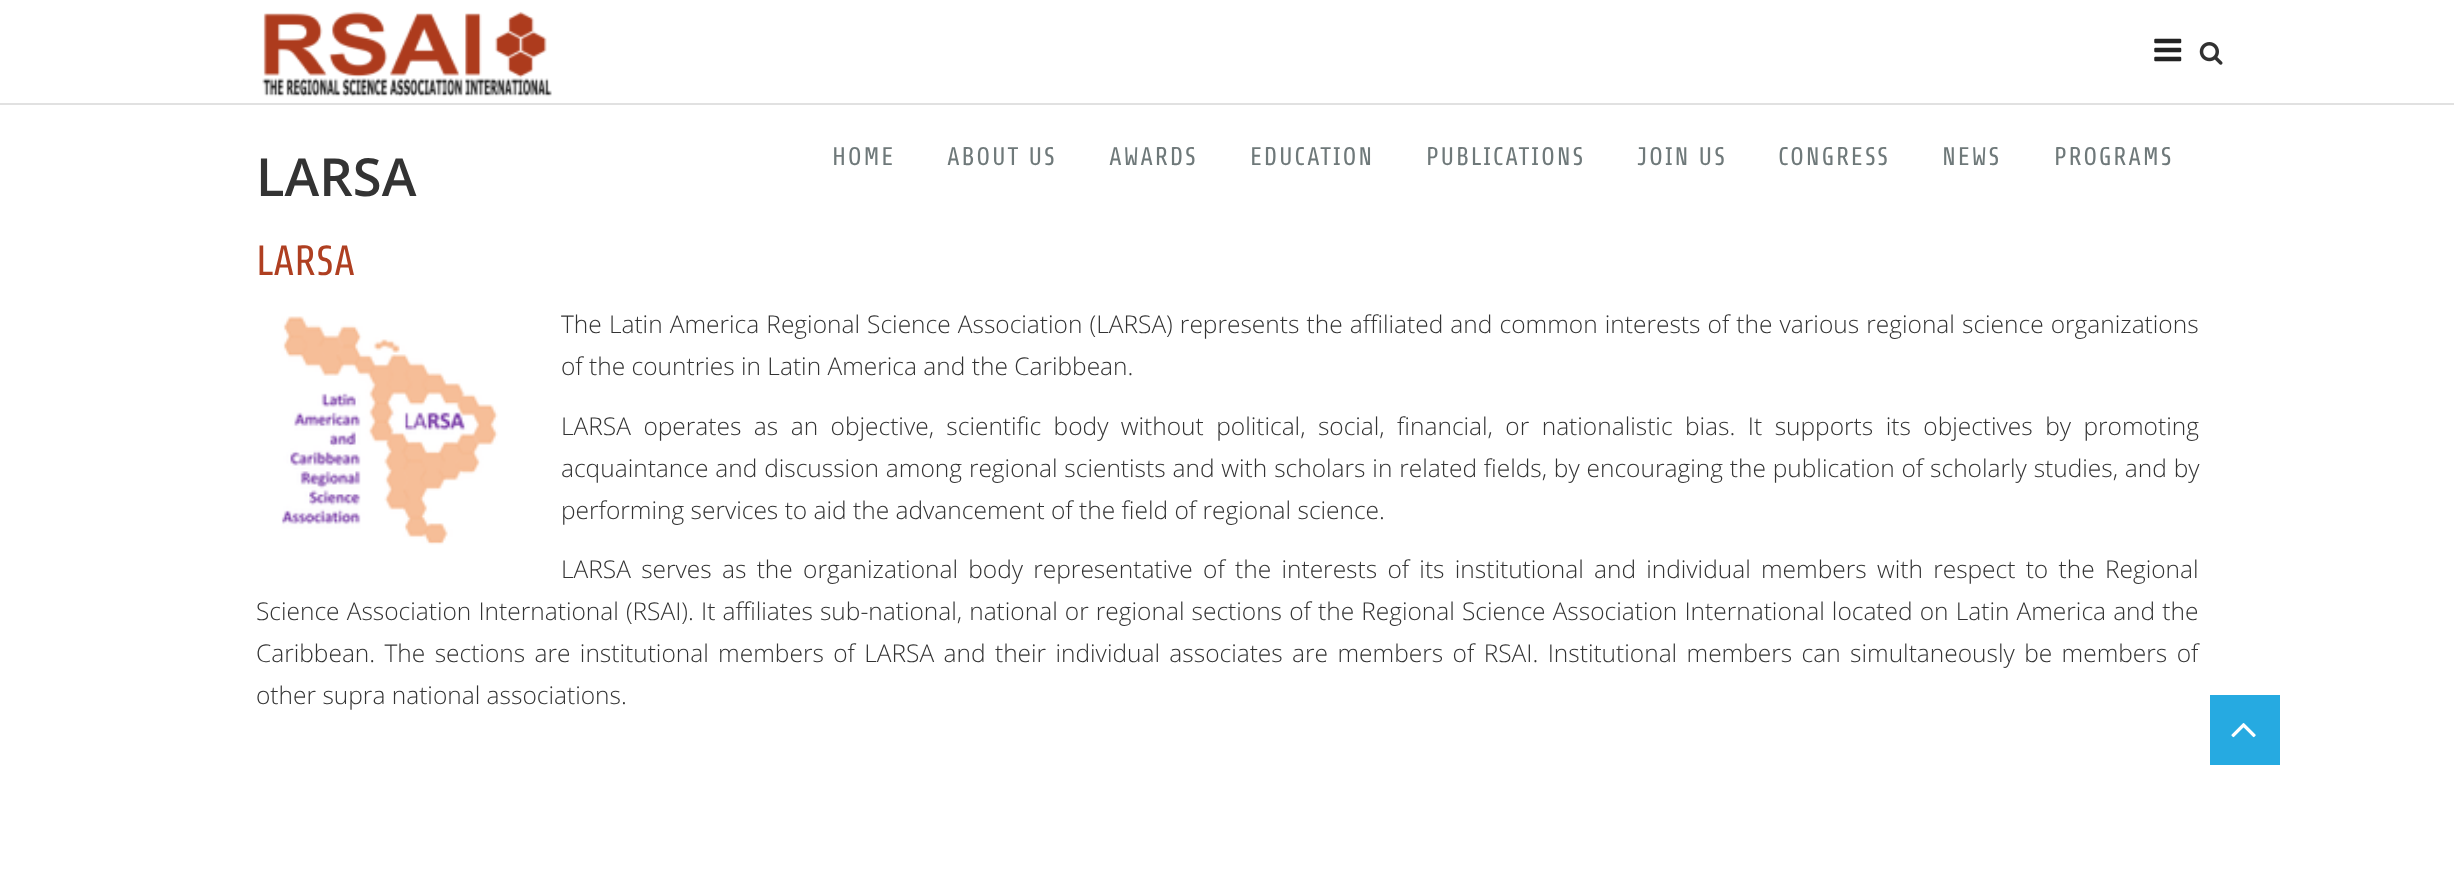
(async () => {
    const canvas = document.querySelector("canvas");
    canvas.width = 2454;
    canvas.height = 873;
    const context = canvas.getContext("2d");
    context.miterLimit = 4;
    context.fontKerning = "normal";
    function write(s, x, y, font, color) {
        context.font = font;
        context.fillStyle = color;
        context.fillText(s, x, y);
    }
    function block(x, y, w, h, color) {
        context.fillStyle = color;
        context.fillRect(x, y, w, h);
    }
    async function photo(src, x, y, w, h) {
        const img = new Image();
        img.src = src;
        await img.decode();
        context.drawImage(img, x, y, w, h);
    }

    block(0, 0, 2454, 873, "rgb(255, 255, 255)");
    block(0, 103, 2454, 2, "rgb(225, 225, 225)");
    await photo("media/1.png", 262, 11, 290, 86);
    await photo("media/2.png", 2199, 42, 24, 23);
    await photo("media/3.png", 2154, 38, 28, 24);
    context.letterSpacing = "1.75px";
    write("HOME", 832, 165, "25.5px Share", "rgb(111, 121, 122)");
    write("ABOUT US", 947, 165, "25.5px Share", "rgb(111, 121, 122)");
    write("AWARDS", 1109, 165, "25.5px Share", "rgb(111, 121, 122)");
    write("EDUCATION", 1250, 165, "25.5px Share", "rgb(111, 121, 122)");
    write("PUBLICATIONS", 1426, 165, "25.5px Share", "rgb(111, 121, 122)");
    write("JOIN US", 1637, 165, "25.5px Share", "rgb(111, 121, 122)");
    write("CONGRESS", 1778, 165, "25.5px Share", "rgb(111, 121, 122)");
    write("NEWS", 1942, 165, "25.5px Share", "rgb(111, 121, 122)");
    write("PROGRAMS", 2054, 165, "25.5px Share", "rgb(111, 121, 122)");
    context.letterSpacing = "0px";
    write("LARSA", 256, 196, "600 52.5px Open Sans", "rgb(51, 51, 51)");
    write("LARSA", 256, 275, "42px Share", "rgb(175, 63, 33)");
    await photo("media/4.png", 281, 316, 217, 229);
    context.wordSpacing = "0.75px";
    write("The Latin America Regional Science Association (LARSA) represents the affiliated and common interests of the various regional science organizations", 561, 333, "300 24.5px Open Sans", "rgb(51, 51, 51)");
    context.wordSpacing = "0px";
    write("of the countries in Latin America and the Caribbean.", 561, 375, "300 24.5px Open Sans", "rgb(51, 51, 51)");
    context.wordSpacing = "6.1px";
    write("LARSA operates as an objective, scientific body without political, social, financial, or nationalistic bias. It supports its objectives by promoting", 561, 435, "300 24.5px Open Sans", "rgb(51, 51, 51)");
    context.wordSpacing = "0.5px";
    write("acquaintance and discussion among regional scientists and with scholars in related fields, by encouraging the publication of scholarly studies, and by", 561, 477, "300 24.5px Open Sans", "rgb(51, 51, 51)");
    context.wordSpacing = "0px";
    write("performing services to aid the advancement of the field of regional science.", 561, 519, "300 24.5px Open Sans", "rgb(51, 51, 51)");
    context.wordSpacing = "3.9px";
    write("LARSA serves as the organizational body representative of the interests of its institutional and individual members with respect to the Regional", 561, 578, "300 24.5px Open Sans", "rgb(51, 51, 51)");
    context.wordSpacing = "0.75px";
    write("Science Association International (RSAI). It affiliates sub-national, national or regional sections of the Regional Science Association International located on Latin America and the", 256, 620, "300 24.5px Open Sans", "rgb(51, 51, 51)");
    context.wordSpacing = "3px";
    write("Caribbean. The sections are institutional members of LARSA and their individual associates are members of RSAI. Institutional members can simultaneously be members of", 256, 662, "300 24.5px Open Sans", "rgb(51, 51, 51)");
    context.wordSpacing = "0px";
    write("other supra national associations.", 256, 704, "300 24.5px Open Sans", "rgb(51, 51, 51)");
    block(2210, 695, 70, 70, "rgb(38, 170, 225)");
    await photo("media/5.png", 2231, 723, 25, 15);
})();
